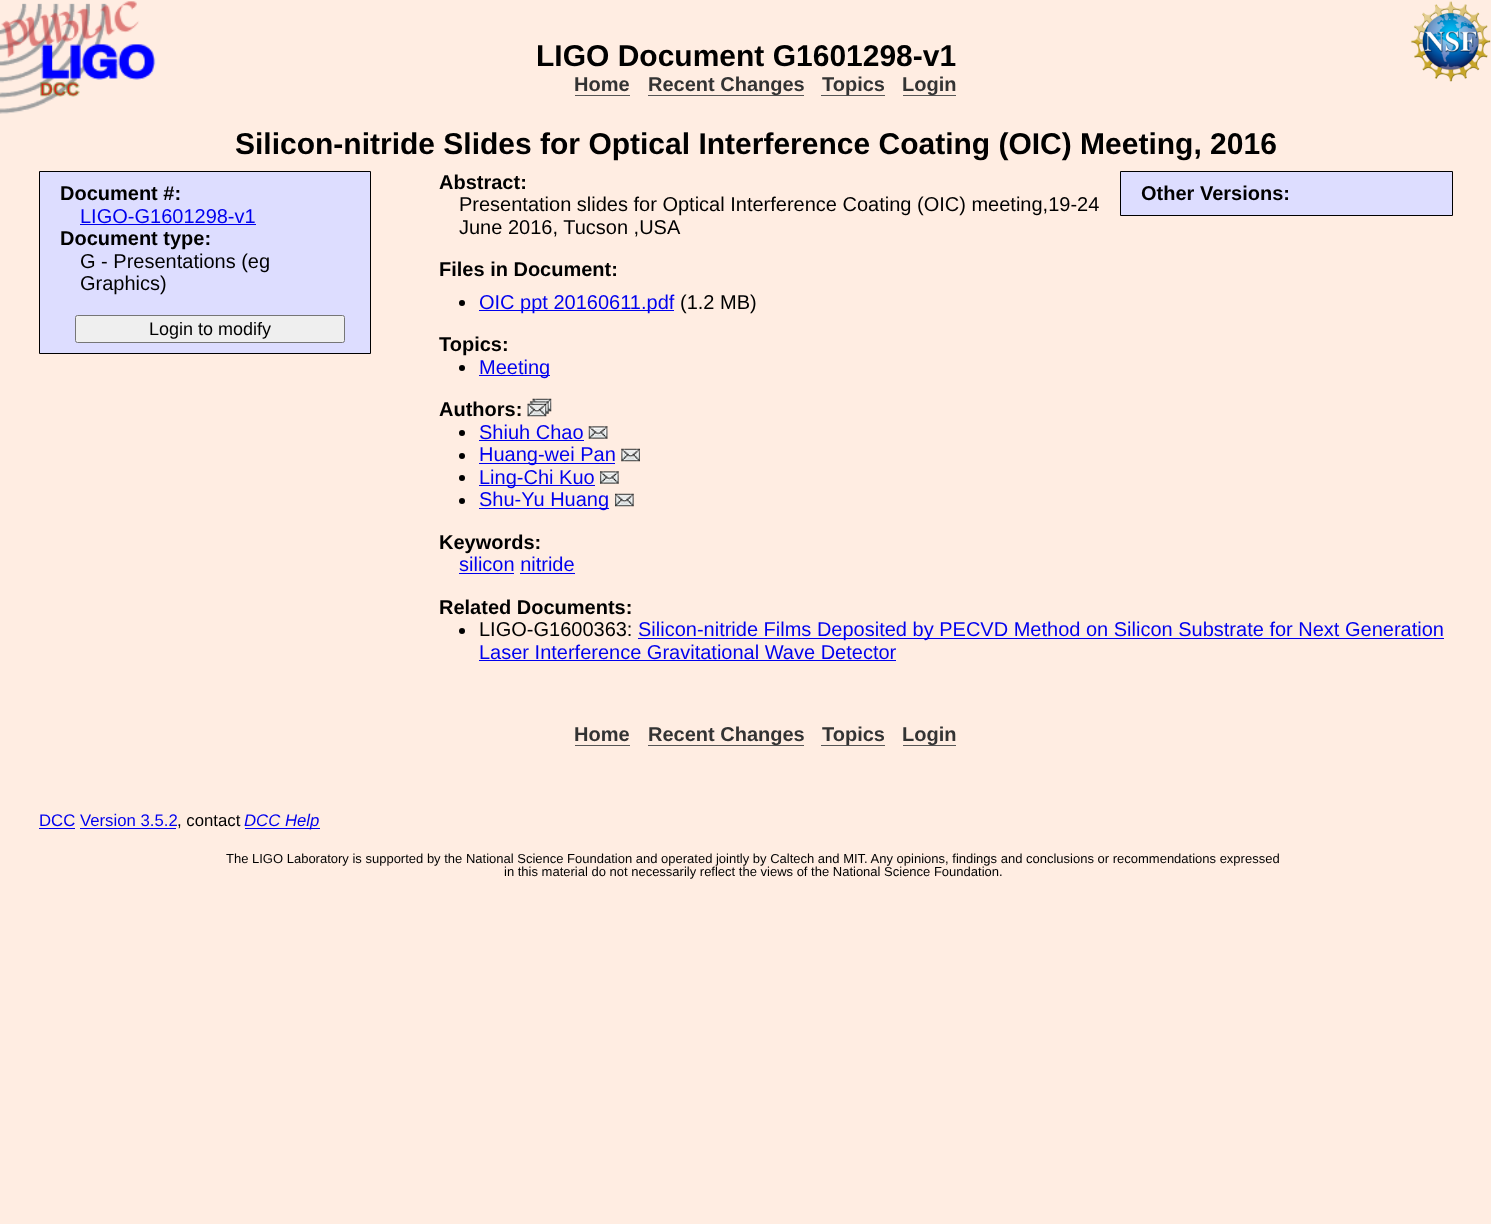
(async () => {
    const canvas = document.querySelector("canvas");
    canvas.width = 1491;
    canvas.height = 1224;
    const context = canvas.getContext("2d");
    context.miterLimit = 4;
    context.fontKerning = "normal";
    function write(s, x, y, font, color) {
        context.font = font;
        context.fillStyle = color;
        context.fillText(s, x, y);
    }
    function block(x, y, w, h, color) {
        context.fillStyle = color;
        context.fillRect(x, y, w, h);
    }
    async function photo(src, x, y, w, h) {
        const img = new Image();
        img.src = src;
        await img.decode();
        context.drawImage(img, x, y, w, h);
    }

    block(0, 0, 1491, 1224, "rgb(255, 237, 226)");
    await photo("media/1.png", 0, 1, 1491, 113);
    write("LIGO Document G1601298-v1", 536, 66, "bold 30px Liberation Sans", "rgb(0, 0, 0)");
    write("Home", 574, 91, "bold 20px Liberation Sans", "rgb(51, 51, 51)");
    block(575, 95, 55, 1, "rgb(85, 85, 85)");
    block(648, 95, 156, 1, "rgb(85, 85, 85)");
    write("Recent Changes", 648, 91, "bold 20px Liberation Sans", "rgb(51, 51, 51)");
    block(821, 95, 64, 1, "rgb(85, 85, 85)");
    write("Topics", 822, 91, "bold 20px Liberation Sans", "rgb(51, 51, 51)");
    block(903, 95, 53, 1, "rgb(85, 85, 85)");
    write("Login", 902, 91, "bold 20px Liberation Sans", "rgb(51, 51, 51)");
    write("Silicon-nitride Slides for Optical Interference Coating (OIC) Meeting, 2016", 235, 154, "bold 30px Liberation Sans", "rgb(0, 0, 0)");
    context.fillStyle = "rgb(221, 221, 255)";
    context.beginPath();
    context.rect(39.5, 171.5, 331, 182);
    context.fill();
    context.strokeStyle = "rgb(0, 0, 0)";
    context.stroke();
    write("Document #:", 60, 200, "bold 20px Liberation Sans", "rgb(0, 0, 0)");
    write("LIGO-G1601298-v1", 80, 223, "20px Liberation Sans", "rgb(0, 0, 238)");
    block(80, 224, 176, 1, "rgb(0, 0, 238)");
    write("Document type:", 60, 245, "bold 20px Liberation Sans", "rgb(0, 0, 0)");
    write("G - Presentations (eg", 80, 268, "20px Liberation Sans", "rgb(0, 0, 0)");
    write("Graphics)", 80, 290, "20px Liberation Sans", "rgb(0, 0, 0)");
    context.fillStyle = "rgb(239, 239, 239)";
    context.beginPath();
    context.roundRect(75.5, 315.5, 269, 27, 2);
    context.fill();
    context.strokeStyle = "rgb(118, 118, 118)";
    context.stroke();
    write("Login to modify", 149, 335, "18px Liberation Sans", "rgb(0, 0, 0)");
    write("Abstract:", 439, 189, "bold 20px Liberation Sans", "rgb(0, 0, 0)");
    write("Presentation slides for Optical Interference Coating (OIC) meeting,19-24", 459, 211, "20px Liberation Sans", "rgb(0, 0, 0)");
    write("June 2016, Tucson ,USA", 459, 234, "20px Liberation Sans", "rgb(0, 0, 0)");
    context.fillStyle = "rgb(221, 221, 255)";
    context.beginPath();
    context.rect(1120.5, 171.5, 332, 44);
    context.fill();
    context.strokeStyle = "rgb(0, 0, 0)";
    context.stroke();
    write("Other Versions:", 1141, 200, "bold 20px Liberation Sans", "rgb(0, 0, 0)");
    write("Files in Document:", 439, 276, "bold 20px Liberation Sans", "rgb(0, 0, 0)");
    context.beginPath();
    context.arc(462, 303, 3, 0, Math.PI * 2);
    context.fill();
    block(479, 310, 195, 1, "rgb(0, 0, 238)");
    write("OIC ppt 20160611.pdf", 479, 309, "20px Liberation Sans", "rgb(0, 0, 238)");
    write("(1.2 MB)", 680, 309, "20px Liberation Sans", "rgb(0, 0, 0)");
    write("Topics:", 439, 351, "bold 20px Liberation Sans", "rgb(0, 0, 0)");
    context.beginPath();
    context.arc(462, 368, 3, 0, Math.PI * 2);
    context.fill();
    block(479, 375, 71, 1, "rgb(0, 0, 238)");
    write("Meeting", 479, 374, "20px Liberation Sans", "rgb(0, 0, 238)");
    write("Authors:", 439, 416, "bold 20px Liberation Sans", "rgb(0, 0, 0)");
    await photo("media/2.png", 527, 398, 25, 19);
    context.beginPath();
    context.arc(462, 433, 3, 0, Math.PI * 2);
    context.fill();
    write("Shiuh Chao", 479, 439, "20px Liberation Sans", "rgb(0, 0, 238)");
    block(479, 440, 105, 1, "rgb(0, 0, 238)");
    await photo("media/3.png", 588, 426, 20, 13);
    context.fillStyle = "rgb(0, 0, 0)";
    context.beginPath();
    context.arc(462, 456, 3, 0, Math.PI * 2);
    context.fill();
    block(479, 463, 136, 1, "rgb(0, 0, 238)");
    write("Huang-wei Pan", 479, 461, "20px Liberation Sans", "rgb(0, 0, 238)");
    await photo("media/4.png", 621, 448, 19, 14);
    context.fillStyle = "rgb(0, 0, 0)";
    context.beginPath();
    context.arc(462, 478, 3, 0, Math.PI * 2);
    context.fill();
    block(479, 485, 116, 1, "rgb(0, 0, 238)");
    write("Ling-Chi Kuo", 479, 484, "20px Liberation Sans", "rgb(0, 0, 238)");
    await photo("media/5.png", 600, 471, 19, 13);
    context.fillStyle = "rgb(0, 0, 0)";
    context.beginPath();
    context.arc(462, 501, 3, 0, Math.PI * 2);
    context.fill();
    block(479, 508, 130, 1, "rgb(0, 0, 238)");
    write("Shu-Yu Huang", 479, 506, "20px Liberation Sans", "rgb(0, 0, 238)");
    await photo("media/6.png", 615, 493, 19, 14);
    write("Keywords:", 439, 549, "bold 20px Liberation Sans", "rgb(0, 0, 0)");
    write("silicon nitride", 459, 571, "20px Liberation Sans", "rgb(0, 0, 238)");
    block(459, 573, 55, 1, "rgb(0, 0, 238)");
    block(520, 573, 55, 1, "rgb(0, 0, 238)");
    write("Related Documents:", 439, 614, "bold 20px Liberation Sans", "rgb(0, 0, 0)");
    context.beginPath();
    context.arc(462, 631, 3, 0, Math.PI * 2);
    context.fill();
    write("LIGO-G1600363:", 479, 636, "20px Liberation Sans", "rgb(0, 0, 0)");
    block(638, 638, 806, 1, "rgb(0, 0, 238)");
    write("Silicon-nitride Films Deposited by PECVD Method on Silicon Substrate for Next Generation", 638, 636, "20px Liberation Sans", "rgb(0, 0, 238)");
    write("Laser Interference Gravitational Wave Detector", 479, 659, "20px Liberation Sans", "rgb(0, 0, 238)");
    block(479, 660, 417, 1, "rgb(0, 0, 238)");
    write("Home", 574, 741, "bold 20px Liberation Sans", "rgb(51, 51, 51)");
    block(575, 745, 55, 1, "rgb(85, 85, 85)");
    block(648, 745, 156, 1, "rgb(85, 85, 85)");
    write("Recent Changes", 648, 741, "bold 20px Liberation Sans", "rgb(51, 51, 51)");
    block(821, 745, 64, 1, "rgb(85, 85, 85)");
    write("Topics", 822, 741, "bold 20px Liberation Sans", "rgb(51, 51, 51)");
    block(903, 745, 53, 1, "rgb(85, 85, 85)");
    write("Login", 902, 741, "bold 20px Liberation Sans", "rgb(51, 51, 51)");
    write("DCC Version 3.5.2", 39, 826, "16.75px Liberation Sans", "rgb(0, 0, 238)");
    block(39, 828, 36, 1, "rgb(0, 0, 238)");
    write(", contact", 177, 826, "16.75px Liberation Sans", "rgb(0, 0, 0)");
    block(80, 828, 96, 1, "rgb(0, 0, 238)");
    block(245, 828, 75, 1, "rgb(0, 0, 238)");
    write("DCC Help", 244, 826, "italic 16.75px Liberation Sans", "rgb(0, 0, 238)");
    write("The LIGO Laboratory is supported by the National Science Foundation and operated jointly by Caltech and MIT. Any opinions, findings and conclusions or recommendations expressed", 226, 863, "13px Liberation Sans", "rgb(0, 0, 0)");
    write("in this material do not necessarily reflect the views of the National Science Foundation.", 504, 876, "13px Liberation Sans", "rgb(0, 0, 0)");
})();
